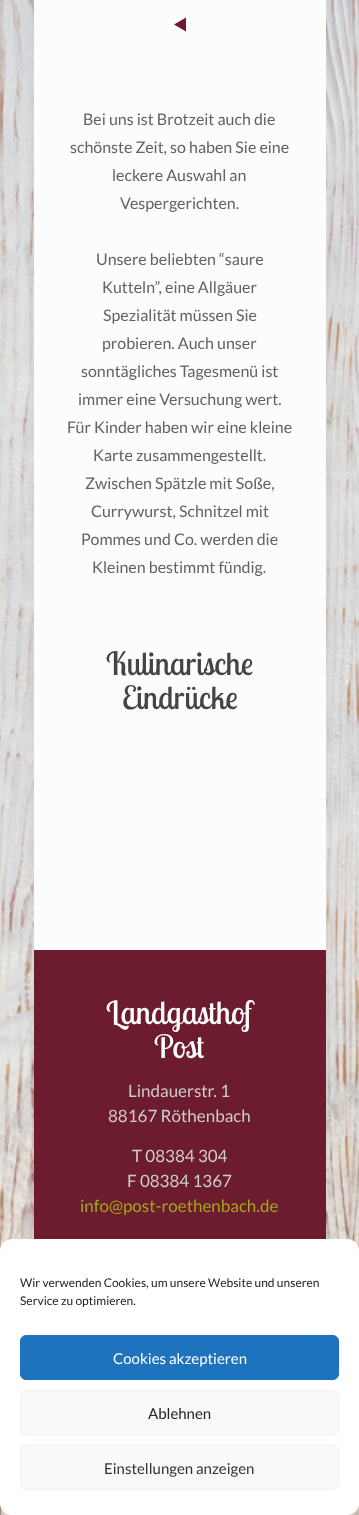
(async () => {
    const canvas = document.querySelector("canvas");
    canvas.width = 359;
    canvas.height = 1515;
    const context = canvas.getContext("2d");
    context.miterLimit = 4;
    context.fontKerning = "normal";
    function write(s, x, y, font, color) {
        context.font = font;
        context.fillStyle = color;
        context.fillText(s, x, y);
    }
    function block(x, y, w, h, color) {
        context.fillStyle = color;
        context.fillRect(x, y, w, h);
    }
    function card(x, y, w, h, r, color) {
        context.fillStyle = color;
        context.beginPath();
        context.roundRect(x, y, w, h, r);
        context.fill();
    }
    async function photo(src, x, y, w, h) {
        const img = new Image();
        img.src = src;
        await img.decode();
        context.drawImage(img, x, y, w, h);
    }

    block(0, 0, 359, 1515, "rgb(255, 255, 255)");
    await photo("media/1.png", 0, 0, 359, 1515);
    context.fillStyle = "rgba(0, 0, 0, 0.06)";
    context.filter = "blur(7.5px)";
    context.beginPath();
    context.rect(34, -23, 292, 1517);
    context.fill();
    context.filter = "none";
    block(34, 0, 292, 950, "rgb(252, 252, 252)");
    context.fillStyle = "rgb(109, 27, 47)";
    context.beginPath();
    context.moveTo(90, -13.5);
    context.lineTo(102, -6.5);
    context.lineTo(90, 0.5);
    context.closePath();
    context.fill();
    context.beginPath();
    context.moveTo(186, 17.5);
    context.lineTo(186, 31.5);
    context.lineTo(174, 24.5);
    context.closePath();
    context.fill();
    write("Bei uns ist Brotzeit auch die", 83, 125, "16px Lato", "rgb(98, 98, 98)");
    write("schönste Zeit, so haben Sie eine", 70, 153, "16px Lato", "rgb(98, 98, 98)");
    write("leckere Auswahl an", 112, 181, "16px Lato", "rgb(98, 98, 98)");
    write("Vespergerichten.", 120, 209, "16px Lato", "rgb(98, 98, 98)");
    write("Unsere beliebten “saure", 96, 265, "16px Lato", "rgb(98, 98, 98)");
    write("Kutteln”, eine Allgäuer", 102, 293, "16px Lato", "rgb(98, 98, 98)");
    write("Spezialität müssen Sie", 103, 321, "16px Lato", "rgb(98, 98, 98)");
    write("probieren. Auch unser", 102, 349, "16px Lato", "rgb(98, 98, 98)");
    write("sonntägliches Tagesmenü ist", 81, 377, "16px Lato", "rgb(98, 98, 98)");
    write("immer eine Versuchung wert.", 78, 405, "16px Lato", "rgb(98, 98, 98)");
    write("Für Kinder haben wir eine kleine", 67, 433, "16px Lato", "rgb(98, 98, 98)");
    write("Karte zusammengestellt.", 93, 461, "16px Lato", "rgb(98, 98, 98)");
    write("Zwischen Spätzle mit Soße,", 85, 489, "16px Lato", "rgb(98, 98, 98)");
    write("Currywurst, Schnitzel mit", 91, 517, "16px Lato", "rgb(98, 98, 98)");
    write("Pommes und Co. werden die", 81, 545, "16px Lato", "rgb(98, 98, 98)");
    write("Kleinen bestimmt fündig.", 92, 573, "16px Lato", "rgb(98, 98, 98)");
    write("Kulinarische", 106, 675, "32px Lobster Two", "rgb(68, 68, 68)");
    write("Eindrücke", 122, 709, "32px Lobster Two", "rgb(68, 68, 68)");
    block(34, 950, 292, 289, "rgb(109, 27, 47)");
    write("Landgasthof", 106, 1024, "32px Lobster Two", "rgb(255, 255, 255)");
    write("Post", 154, 1058, "32px Lobster Two", "rgb(255, 255, 255)");
    write("Lindauerstr. 1", 128, 1097, "17px Lato", "rgb(204, 204, 204)");
    write("88167 Röthenbach", 108, 1122, "17px Lato", "rgb(204, 204, 204)");
    write("T 08384 304", 132, 1162, "17px Lato", "rgb(204, 204, 204)");
    write("F 08384 1367", 127, 1187, "17px Lato", "rgb(204, 204, 204)");
    write("info@post-roethenbach.de", 80, 1212, "17px Lato", "rgb(161, 166, 26)");
    card(0, 1239, 359, 276, 12, "rgb(255, 255, 255)");
    write("Wir verwenden Cookies, um unsere Website und unseren", 20, 1287, "12px Lato", "rgb(34, 34, 34)");
    write("Service zu optimieren.", 20, 1305, "12px Lato", "rgb(34, 34, 34)");
    context.fillStyle = "rgb(30, 115, 190)";
    context.beginPath();
    context.roundRect(20.5, 1335.5, 318, 44, 5.5);
    context.fill();
    context.strokeStyle = "rgb(30, 115, 190)";
    context.stroke();
    write("Cookies akzeptieren", 113, 1364, "15px Lato", "rgb(255, 255, 255)");
    context.fillStyle = "rgb(249, 249, 249)";
    context.beginPath();
    context.roundRect(20.5, 1390.5, 318, 44, 5.5);
    context.fill();
    context.strokeStyle = "rgb(242, 242, 242)";
    context.stroke();
    write("Ablehnen", 148, 1419, "15px Lato", "rgb(34, 34, 34)");
    context.fillStyle = "rgb(249, 249, 249)";
    context.beginPath();
    context.roundRect(20.5, 1445.5, 318, 44, 5.5);
    context.fill();
    context.stroke();
    write("Einstellungen anzeigen", 104, 1474, "15px Lato", "rgb(51, 51, 51)");
})();
